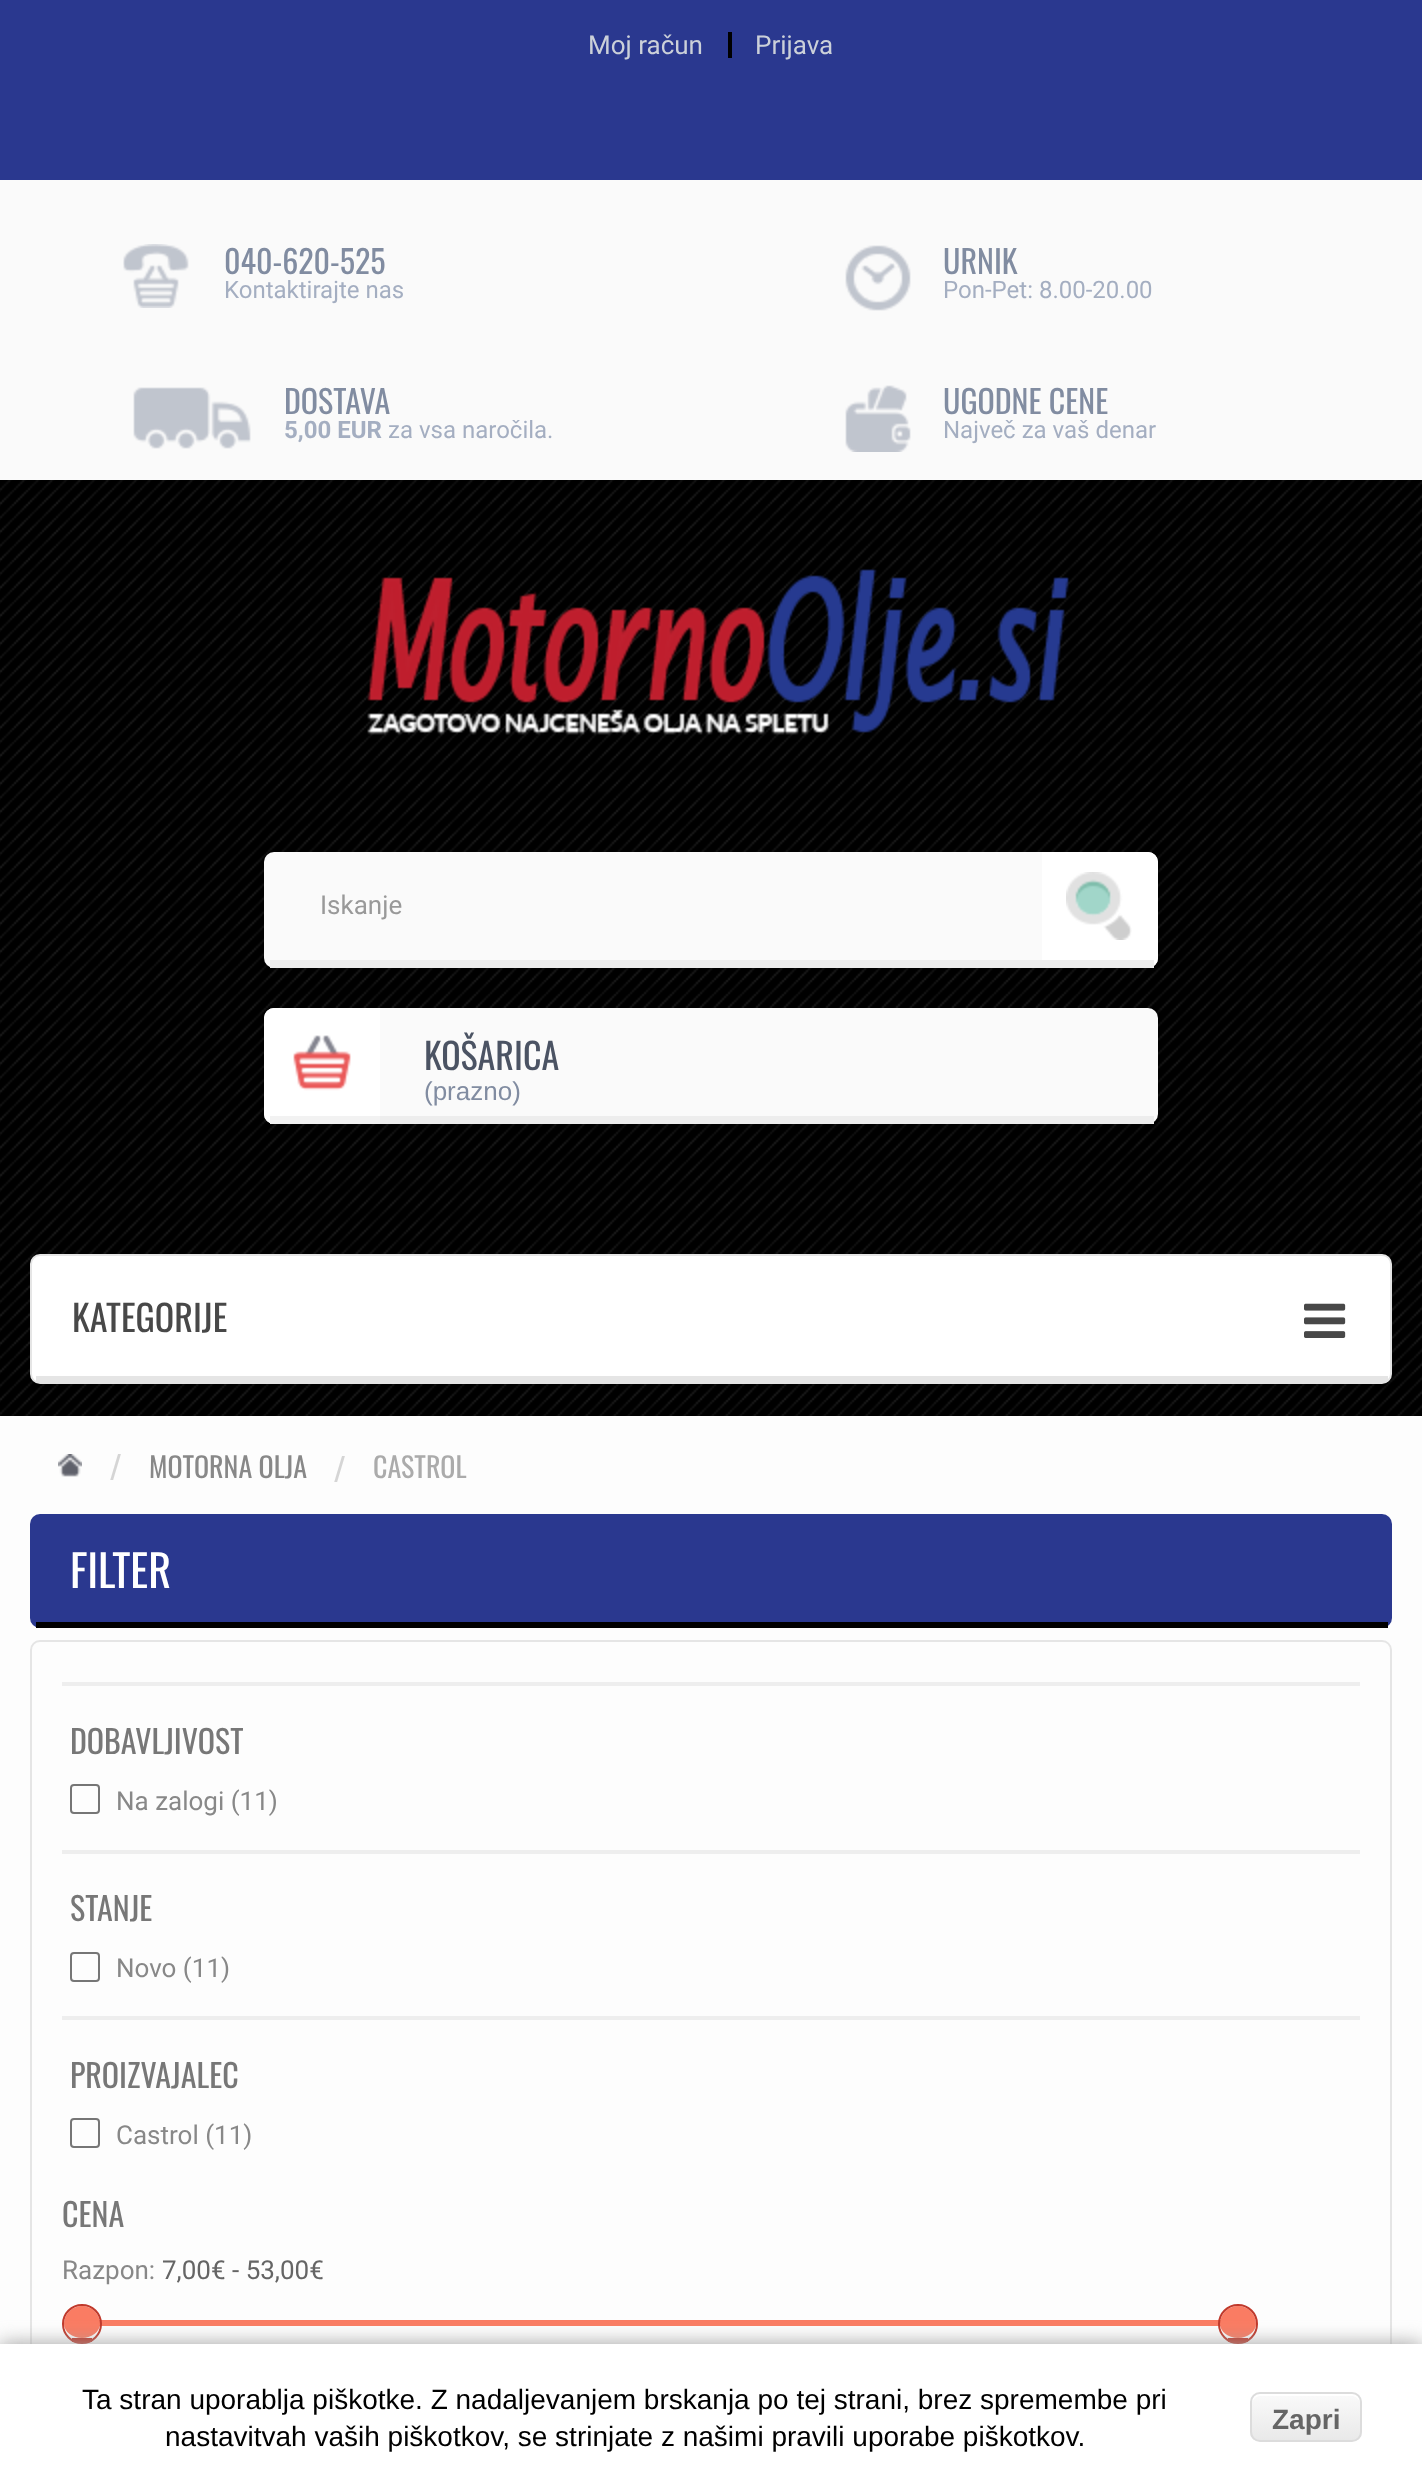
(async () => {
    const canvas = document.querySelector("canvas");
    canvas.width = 1422;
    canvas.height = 2491;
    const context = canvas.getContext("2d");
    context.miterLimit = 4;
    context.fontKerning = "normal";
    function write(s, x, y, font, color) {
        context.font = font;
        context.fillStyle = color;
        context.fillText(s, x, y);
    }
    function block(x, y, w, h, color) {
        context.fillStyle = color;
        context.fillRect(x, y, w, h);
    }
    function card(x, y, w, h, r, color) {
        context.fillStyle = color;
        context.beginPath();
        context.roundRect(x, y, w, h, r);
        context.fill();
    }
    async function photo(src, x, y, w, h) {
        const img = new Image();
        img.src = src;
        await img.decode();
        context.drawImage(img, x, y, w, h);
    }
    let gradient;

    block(0, 0, 1422, 2491, "rgb(253, 253, 253)");
    await photo("media/1.png", 0, 480, 1422, 936);
    block(0, 0, 1422, 180, "rgb(42, 56, 143)");
    write("Moj račun", 588, 54, "26px Roboto", "rgb(203, 208, 217)");
    block(728, 32, 4, 26, "rgb(0, 0, 0)");
    write("Prijava", 755, 54, "26px Roboto", "rgb(203, 208, 217)");
    block(0, 180, 1422, 300, "rgb(250, 250, 250)");
    await photo("media/2.png", 123, 244, 66, 64);
    write("040-620-525", 224, 274, "32px Oswald", "rgb(129, 140, 161)");
    write("Kontaktirajte nas", 224, 298, "24px Roboto", "rgb(164, 174, 193)");
    await photo("media/3.png", 845, 245, 66, 66);
    write("URNIK", 943, 274, "32px Oswald", "rgb(129, 140, 161)");
    write("Pon-Pet: 8.00-20.00", 943, 298, "24px Roboto", "rgb(164, 174, 193)");
    await photo("media/4.png", 133, 387, 118, 62);
    write("DOSTAVA", 284, 414, "32px Oswald", "rgb(129, 140, 161)");
    write("5,00 EUR", 284, 438, "bold 24px Roboto", "rgb(164, 174, 193)");
    write("za vsa naročila.", 388, 438, "24px Roboto", "rgb(164, 174, 193)");
    await photo("media/5.png", 845, 385, 66, 67);
    write("UGODNE CENE", 943, 414, "32px Oswald", "rgb(129, 140, 161)");
    write("Največ za vaš denar", 943, 438, "24px Roboto", "rgb(164, 174, 193)");
    await photo("media/6.png", 367, 569, 702, 166);
    card(264, 852, 894, 116, 10, "rgb(250, 250, 250)");
    block(270, 960, 772, 8, "rgb(237, 237, 237)");
    write("Iskanje", 320, 914, "26px Roboto", "rgb(153, 153, 153)");
    context.fillStyle = "rgb(255, 255, 255)";
    context.beginPath();
    context.roundRect(1042, 852, 116, 116, [0, 10, 10, 0]);
    context.fill();
    block(1042, 960, 112, 8, "rgb(237, 237, 237)");
    await photo("media/7.png", 1066, 872, 66, 68);
    card(264, 1008, 894, 116, 10, "rgb(250, 250, 250)");
    block(380, 1116, 774, 8, "rgb(237, 237, 237)");
    context.fillStyle = "rgb(255, 255, 255)";
    context.beginPath();
    context.roundRect(264, 1008, 116, 116, [10, 0, 0, 10]);
    context.fill();
    await photo("media/8.png", 293, 1035, 58, 56);
    block(270, 1116, 110, 8, "rgb(242, 242, 242)");
    write("KOŠARICA", 424, 1070, "36px Oswald", "rgb(75, 83, 99)");
    write("(prazno)", 424, 1100, "26px Liberation Sans", "rgb(129, 140, 161)");
    context.fillStyle = "rgb(255, 255, 255)";
    context.beginPath();
    context.roundRect(31, 1255, 1360, 128, 9);
    context.fill();
    context.strokeStyle = "rgb(229, 229, 229)";
    context.lineWidth = 2;
    context.stroke();
    block(36, 1376, 1352, 6, "rgb(229, 229, 229)");
    write("KATEGORIJE", 72, 1332, "36px Oswald", "rgb(72, 72, 72)");
    await photo("media/9.png", 1304, 1303, 42, 35);
    await photo("media/10.png", 58, 1454, 24, 23);
    write("/", 109, 1480, "600 32px Oswald", "rgb(213, 213, 213)");
    write("MOTORNA OLJA", 149, 1478, "28px Oswald", "rgb(136, 136, 136)");
    write("/", 333, 1482, "600 32px Oswald", "rgb(213, 213, 213)");
    write("CASTROL", 373, 1478, "28px Oswald", "rgb(171, 171, 171)");
    card(30, 1514, 1362, 114, 10, "rgb(42, 56, 143)");
    block(36, 1622, 1352, 6, "rgb(0, 0, 0)");
    write("FILTER", 70, 1588, "44px Oswald", "rgb(255, 255, 255)");
    context.beginPath();
    context.roundRect(31, 1641, 1360, 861, 9);
    context.stroke();
    block(62, 1682, 1298, 4, "rgb(238, 238, 238)");
    write("DOBAVLJIVOST", 70, 1754, "32px Oswald", "rgb(119, 119, 119)");
    context.beginPath();
    context.roundRect(71, 1785, 28, 28, 3);
    context.strokeStyle = "rgb(118, 118, 118)";
    context.stroke();
    write("Na zalogi (11)", 116, 1810, "26px Roboto", "rgb(136, 136, 136)");
    block(62, 1850, 1298, 4, "rgb(238, 238, 238)");
    write("STANJE", 70, 1921, "32px Oswald", "rgb(119, 119, 119)");
    context.beginPath();
    context.roundRect(71, 1953, 28, 28, 3);
    context.stroke();
    write("Novo (11)", 116, 1977, "26px Roboto", "rgb(136, 136, 136)");
    block(62, 2016, 1298, 4, "rgb(238, 238, 238)");
    write("PROIZVAJALEC", 70, 2088, "32px Oswald", "rgb(119, 119, 119)");
    context.beginPath();
    context.roundRect(71, 2119, 28, 28, 3);
    context.stroke();
    write("Castrol (11)", 116, 2144, "26px Roboto", "rgb(136, 136, 136)");
    write("CENA", 62, 2227, "32px Oswald", "rgb(119, 119, 119)");
    write("Razpon:", 62, 2279, "26px Roboto", "rgb(136, 136, 136)");
    write("7,00€ - 53,00€", 162, 2279, "26px Roboto", "rgb(101, 101, 101)");
    block(99, 2320, 1122, 6, "rgb(250, 124, 99)");
    context.beginPath();
    context.moveTo(82, 2306);
    context.bezierCurveTo(92, 2306, 100, 2314, 100, 2324);
    context.bezierCurveTo(100, 2331.5, 92, 2338, 82, 2338);
    context.bezierCurveTo(72, 2338, 64, 2331.5, 64, 2324);
    context.bezierCurveTo(64, 2314, 72, 2306, 82, 2306);
    context.closePath();
    context.fill();
    context.beginPath();
    context.arc(82, 2324, 19, 0, Math.PI * 2);
    context.strokeStyle = "rgb(192, 57, 43)";
    context.stroke();
    block(72, 2338, 20, 4, "rgb(192, 57, 43)");
    context.fillStyle = "rgb(250, 124, 99)";
    context.beginPath();
    context.moveTo(1238, 2306);
    context.bezierCurveTo(1248, 2306, 1256, 2314, 1256, 2324);
    context.bezierCurveTo(1256, 2331.5, 1248, 2338, 1238, 2338);
    context.bezierCurveTo(1228, 2338, 1220, 2331.5, 1220, 2324);
    context.bezierCurveTo(1220, 2314, 1228, 2306, 1238, 2306);
    context.closePath();
    context.fill();
    context.beginPath();
    context.arc(1238, 2324, 19, 0, Math.PI * 2);
    context.stroke();
    block(1228, 2338, 20, 4, "rgb(192, 57, 43)");
    context.fillStyle = "rgb(158, 158, 158)";
    context.filter = "blur(10px)";
    context.beginPath();
    context.rect(0, 2344, 1422, 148);
    context.fill();
    context.filter = "none";
    block(0, 2344, 1422, 147, "rgb(255, 255, 255)");
    write("Ta stran uporablja piškotke. Z nadaljevanjem brskanja po tej strani, brez spremembe pri", 82, 2409, "28px Liberation Sans", "rgb(0, 0, 0)");
    write("nastavitvah vaših piškotkov, se strinjate z našimi pravili uporabe piškotkov.", 165, 2446, "28px Liberation Sans", "rgb(0, 0, 0)");
    context.save();
    context.beginPath();
    context.roundRect(1250, 2392, 112, 50, 10);
    context.clip();
    gradient = context.createLinearGradient(1252, 2394, 1252, 2440);
    gradient.addColorStop(0.05, "rgb(249, 249, 249)");
    gradient.addColorStop(1, "rgb(233, 233, 233)");
    context.fillStyle = gradient;
    context.fillRect(1250, 2394, 112, 46);
    context.restore();
    context.fillStyle = "rgb(255, 255, 255)";
    context.beginPath();
    context.moveTo(1260, 2396);
    context.lineTo(1352, 2396);
    context.bezierCurveTo(1356, 2396, 1360, 2400, 1360, 2404);
    context.bezierCurveTo(1360, 2390, 1347, 2394, 1337, 2394);
    context.lineTo(1275, 2394);
    context.bezierCurveTo(1265, 2394, 1252, 2390, 1252, 2404);
    context.bezierCurveTo(1252, 2400, 1256, 2396, 1260, 2396);
    context.closePath();
    context.fill();
    context.beginPath();
    context.roundRect(1251, 2393, 110, 48, 9);
    context.strokeStyle = "rgb(220, 220, 220)";
    context.stroke();
    write("Zapri", 1272, 2429, "bold 28px Liberation Sans", "rgb(101, 101, 101)");
})();
